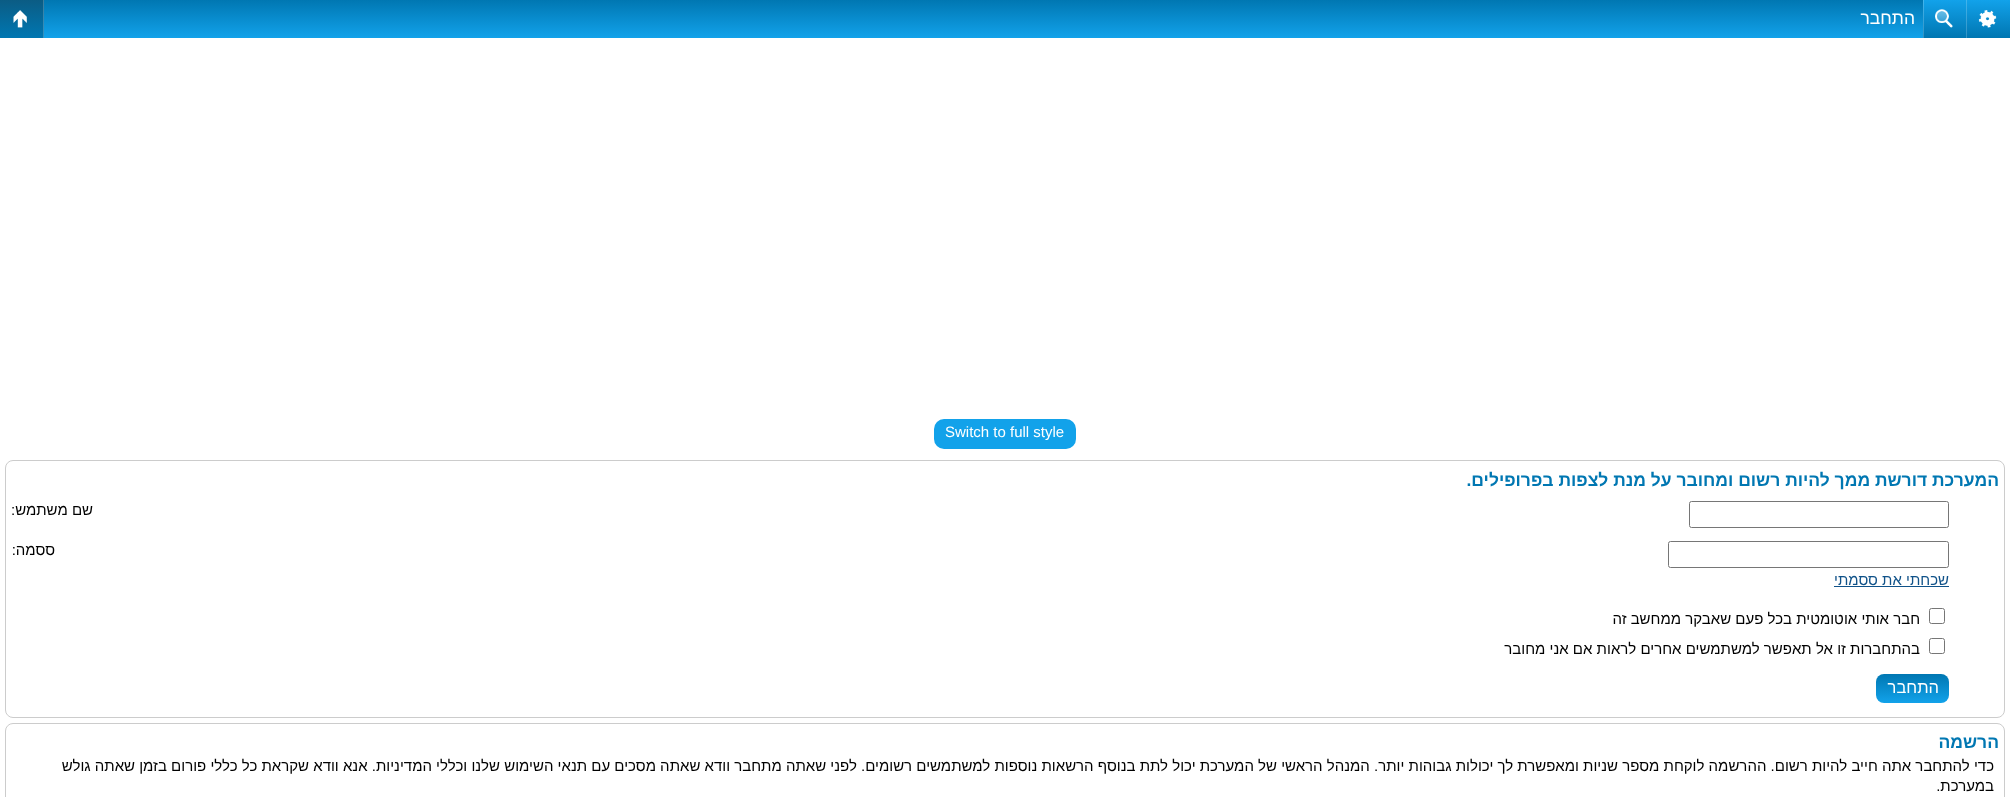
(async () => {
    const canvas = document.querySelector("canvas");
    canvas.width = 2010;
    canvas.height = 797;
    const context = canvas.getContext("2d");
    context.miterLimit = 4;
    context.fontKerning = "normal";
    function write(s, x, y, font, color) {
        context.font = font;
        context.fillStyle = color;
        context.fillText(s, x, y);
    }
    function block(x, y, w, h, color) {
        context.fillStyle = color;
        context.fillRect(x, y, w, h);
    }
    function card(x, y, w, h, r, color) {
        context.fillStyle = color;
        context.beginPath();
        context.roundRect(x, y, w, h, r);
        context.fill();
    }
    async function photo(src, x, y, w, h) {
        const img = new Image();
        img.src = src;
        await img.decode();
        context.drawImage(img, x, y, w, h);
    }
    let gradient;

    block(0, 0, 2010, 797, "rgb(255, 255, 255)");
    gradient = context.createLinearGradient(1005, 0, 1005, 38);
    gradient.addColorStop(0, "rgb(0, 119, 178)");
    gradient.addColorStop(1, "rgb(18, 162, 234)");
    context.fillStyle = gradient;
    context.fillRect(44, 0, 1879, 38);
    gradient = context.createLinearGradient(1988, 0, 1988, 38);
    gradient.addColorStop(0, "rgb(18, 162, 234)");
    gradient.addColorStop(1, "rgb(0, 118, 177)");
    context.fillStyle = gradient;
    context.fillRect(1967, 0, 43, 38);
    gradient = context.createLinearGradient(1988, 0, 1988, 38);
    gradient.addColorStop(0, "rgb(65, 181, 238)");
    gradient.addColorStop(1, "rgb(51, 145, 193)");
    context.fillStyle = gradient;
    context.fillRect(1966, 0, 1, 38);
    await photo("media/1.png", 1978, 10, 19, 18);
    gradient = context.createLinearGradient(1944, 0, 1944, 38);
    gradient.addColorStop(0, "rgb(18, 162, 234)");
    gradient.addColorStop(1, "rgb(0, 118, 177)");
    context.fillStyle = gradient;
    context.fillRect(1924, 0, 42, 38);
    gradient = context.createLinearGradient(1944, 0, 1944, 38);
    gradient.addColorStop(0, "rgb(65, 181, 238)");
    gradient.addColorStop(1, "rgb(51, 145, 193)");
    context.fillStyle = gradient;
    context.fillRect(1923, 0, 1, 38);
    await photo("media/2.png", 1935, 9, 18, 19);
    context.direction = "rtl";
    write("התחבר", 1915, 24, "17.5px Liberation Sans", "rgb(255, 255, 255)");
    gradient = context.createLinearGradient(22, 0, 22, 38);
    gradient.addColorStop(0, "rgb(11, 92, 132)");
    gradient.addColorStop(1, "rgb(0, 119, 178)");
    context.fillStyle = gradient;
    context.fillRect(0, 0, 43, 38);
    gradient = context.createLinearGradient(22, 0, 22, 38);
    gradient.addColorStop(0, "rgb(60, 125, 157)");
    gradient.addColorStop(1, "rgb(51, 146, 193)");
    context.fillStyle = gradient;
    context.fillRect(43, 0, 1, 38);
    await photo("media/3.png", 13, 10, 14, 18);
    card(934, 419, 142, 30, 10, "rgb(18, 162, 234)");
    context.direction = "ltr";
    write("Switch to full style", 945, 437, "15px Liberation Sans", "rgb(255, 255, 255)");
    context.beginPath();
    context.roundRect(5.5, 460.5, 1999, 257, 7.5);
    context.strokeStyle = "rgb(204, 204, 204)";
    context.stroke();
    context.direction = "rtl";
    write("המערכת דורשת ממך להיות רשום ומחובר על מנת לצפות בפרופילים.", 1999, 486, "bold 17.5px Liberation Sans", "rgb(0, 119, 178)");
    context.beginPath();
    context.roundRect(1689.5, 501.5, 259, 26, 2);
    context.strokeStyle = "rgb(118, 118, 118)";
    context.stroke();
    write("שם משתמש:", 93, 515, "15px Liberation Sans", "rgb(0, 0, 0)");
    context.beginPath();
    context.roundRect(1668.5, 541.5, 280, 26, 2);
    context.stroke();
    write("ססמה:", 55, 555, "15px Liberation Sans", "rgb(0, 0, 0)");
    write("שכחתי את ססמתי", 1949, 585, "15px Liberation Sans", "rgb(16, 82, 137)");
    block(1834, 586, 115, 1, "rgb(16, 82, 137)");
    context.beginPath();
    context.roundRect(1929.5, 608.5, 15, 15, 2);
    context.stroke();
    write("חבר אותי אוטומטית בכל פעם שאבקר ממחשב זה", 1920, 624, "15px Liberation Sans", "rgb(0, 0, 0)");
    context.beginPath();
    context.roundRect(1929.5, 638.5, 15, 15, 2);
    context.stroke();
    write("בהתחברות זו אל תאפשר למשתמשים אחרים לראות אם אני מחובר", 1920, 654, "15px Liberation Sans", "rgb(0, 0, 0)");
    gradient = context.createLinearGradient(1913, 674, 1913, 703);
    gradient.addColorStop(0, "rgb(0, 119, 178)");
    gradient.addColorStop(1, "rgb(18, 162, 234)");
    context.fillStyle = gradient;
    context.beginPath();
    context.roundRect(1876, 674, 73, 29, 8);
    context.fill();
    write("התחבר", 1939, 693, "16.5px Liberation Sans", "rgb(255, 255, 255)");
    context.beginPath();
    context.roundRect(5.5, 723.5, 1999, 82, 7.5);
    context.strokeStyle = "rgb(204, 204, 204)";
    context.stroke();
    write("הרשמה", 1999, 748, "bold 17.5px Liberation Sans", "rgb(0, 119, 178)");
    write("כדי להתחבר אתה חייב להיות רשום. ההרשמה לוקחת מספר שניות ומאפשרת לך יכולות גבוהות יותר. המנהל הראשי של המערכת יכול לתת בנוסף הרשאות נוספות למשתמשים רשומים. לפני שאתה מתחבר וודא שאתה מסכים עם תנאי השימוש שלנו וכללי המדיניות. אנא וודא שקראת כל כללי פורום בזמן שאתה גולש", 1994, 771, "15px Liberation Sans", "rgb(0, 0, 0)");
    write("במערכת.", 1994, 791, "15px Liberation Sans", "rgb(0, 0, 0)");
})();
